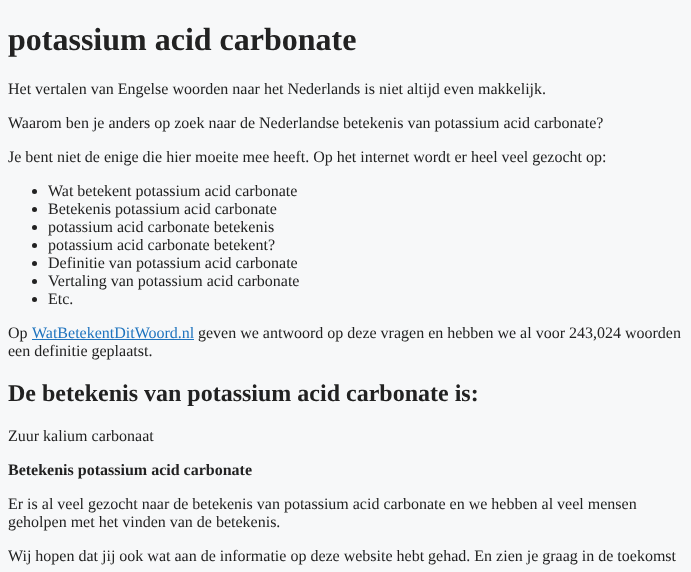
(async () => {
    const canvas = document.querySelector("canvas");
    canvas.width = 691;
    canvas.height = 572;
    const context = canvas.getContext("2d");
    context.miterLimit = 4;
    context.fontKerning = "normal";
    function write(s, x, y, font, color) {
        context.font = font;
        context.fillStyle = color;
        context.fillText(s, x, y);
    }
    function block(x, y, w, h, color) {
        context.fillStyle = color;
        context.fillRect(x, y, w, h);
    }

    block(0, 0, 691, 572, "rgb(247, 248, 249)");
    write("potassium acid carbonate", 8, 50, "bold 32px Liberation Serif", "rgb(34, 34, 34)");
    write("Het vertalen van Engelse woorden naar het Nederlands is niet altijd even makkelijk.", 8, 94, "16px Liberation Serif", "rgb(34, 34, 34)");
    write("Waarom ben je anders op zoek naar de Nederlandse betekenis van potassium acid carbonate?", 8, 128, "16px Liberation Serif", "rgb(34, 34, 34)");
    write("Je bent niet de enige die hier moeite mee heeft. Op het internet wordt er heel veel gezocht op:", 8, 162, "16px Liberation Serif", "rgb(34, 34, 34)");
    context.beginPath();
    context.arc(34.5, 191.5, 2.5, 0, Math.PI * 2);
    context.fill();
    write("Wat betekent potassium acid carbonate", 48, 196, "16px Liberation Serif", "rgb(34, 34, 34)");
    context.beginPath();
    context.arc(34.5, 209.5, 2.5, 0, Math.PI * 2);
    context.fill();
    write("Betekenis potassium acid carbonate", 48, 214, "16px Liberation Serif", "rgb(34, 34, 34)");
    context.beginPath();
    context.arc(34.5, 227.5, 2.5, 0, Math.PI * 2);
    context.fill();
    write("potassium acid carbonate betekenis", 48, 232, "16px Liberation Serif", "rgb(34, 34, 34)");
    context.beginPath();
    context.arc(34.5, 245.5, 2.5, 0, Math.PI * 2);
    context.fill();
    write("potassium acid carbonate betekent?", 48, 250, "16px Liberation Serif", "rgb(34, 34, 34)");
    context.beginPath();
    context.arc(34.5, 263.5, 2.5, 0, Math.PI * 2);
    context.fill();
    write("Definitie van potassium acid carbonate", 48, 268, "16px Liberation Serif", "rgb(34, 34, 34)");
    context.beginPath();
    context.arc(34.5, 281.5, 2.5, 0, Math.PI * 2);
    context.fill();
    write("Vertaling van potassium acid carbonate", 48, 286, "16px Liberation Serif", "rgb(34, 34, 34)");
    context.beginPath();
    context.arc(34.5, 299.5, 2.5, 0, Math.PI * 2);
    context.fill();
    write("Etc.", 48, 304, "16px Liberation Serif", "rgb(34, 34, 34)");
    write("Op", 8, 338, "16px Liberation Serif", "rgb(34, 34, 34)");
    write("WatBetekentDitWoord.nl", 32, 338, "16px Liberation Serif", "rgb(30, 115, 190)");
    block(32, 339, 162, 1, "rgb(30, 115, 190)");
    write("geven we antwoord op deze vragen en hebben we al voor 243,024 woorden", 198, 338, "16px Liberation Serif", "rgb(34, 34, 34)");
    write("een definitie geplaatst.", 8, 356, "16px Liberation Serif", "rgb(34, 34, 34)");
    write("De betekenis van potassium acid carbonate is:", 8, 401, "bold 24px Liberation Serif", "rgb(34, 34, 34)");
    write("Zuur kalium carbonaat", 8, 441, "16px Liberation Serif", "rgb(34, 34, 34)");
    write("Betekenis potassium acid carbonate", 8, 475, "bold 16px Liberation Serif", "rgb(34, 34, 34)");
    write("Er is al veel gezocht naar de betekenis van potassium acid carbonate en we hebben al veel mensen", 8, 509, "16px Liberation Serif", "rgb(34, 34, 34)");
    write("geholpen met het vinden van de betekenis.", 8, 527, "16px Liberation Serif", "rgb(34, 34, 34)");
    write("Wij hopen dat jij ook wat aan de informatie op deze website hebt gehad. En zien je graag in de toekomst", 8, 561, "16px Liberation Serif", "rgb(34, 34, 34)");
})();
